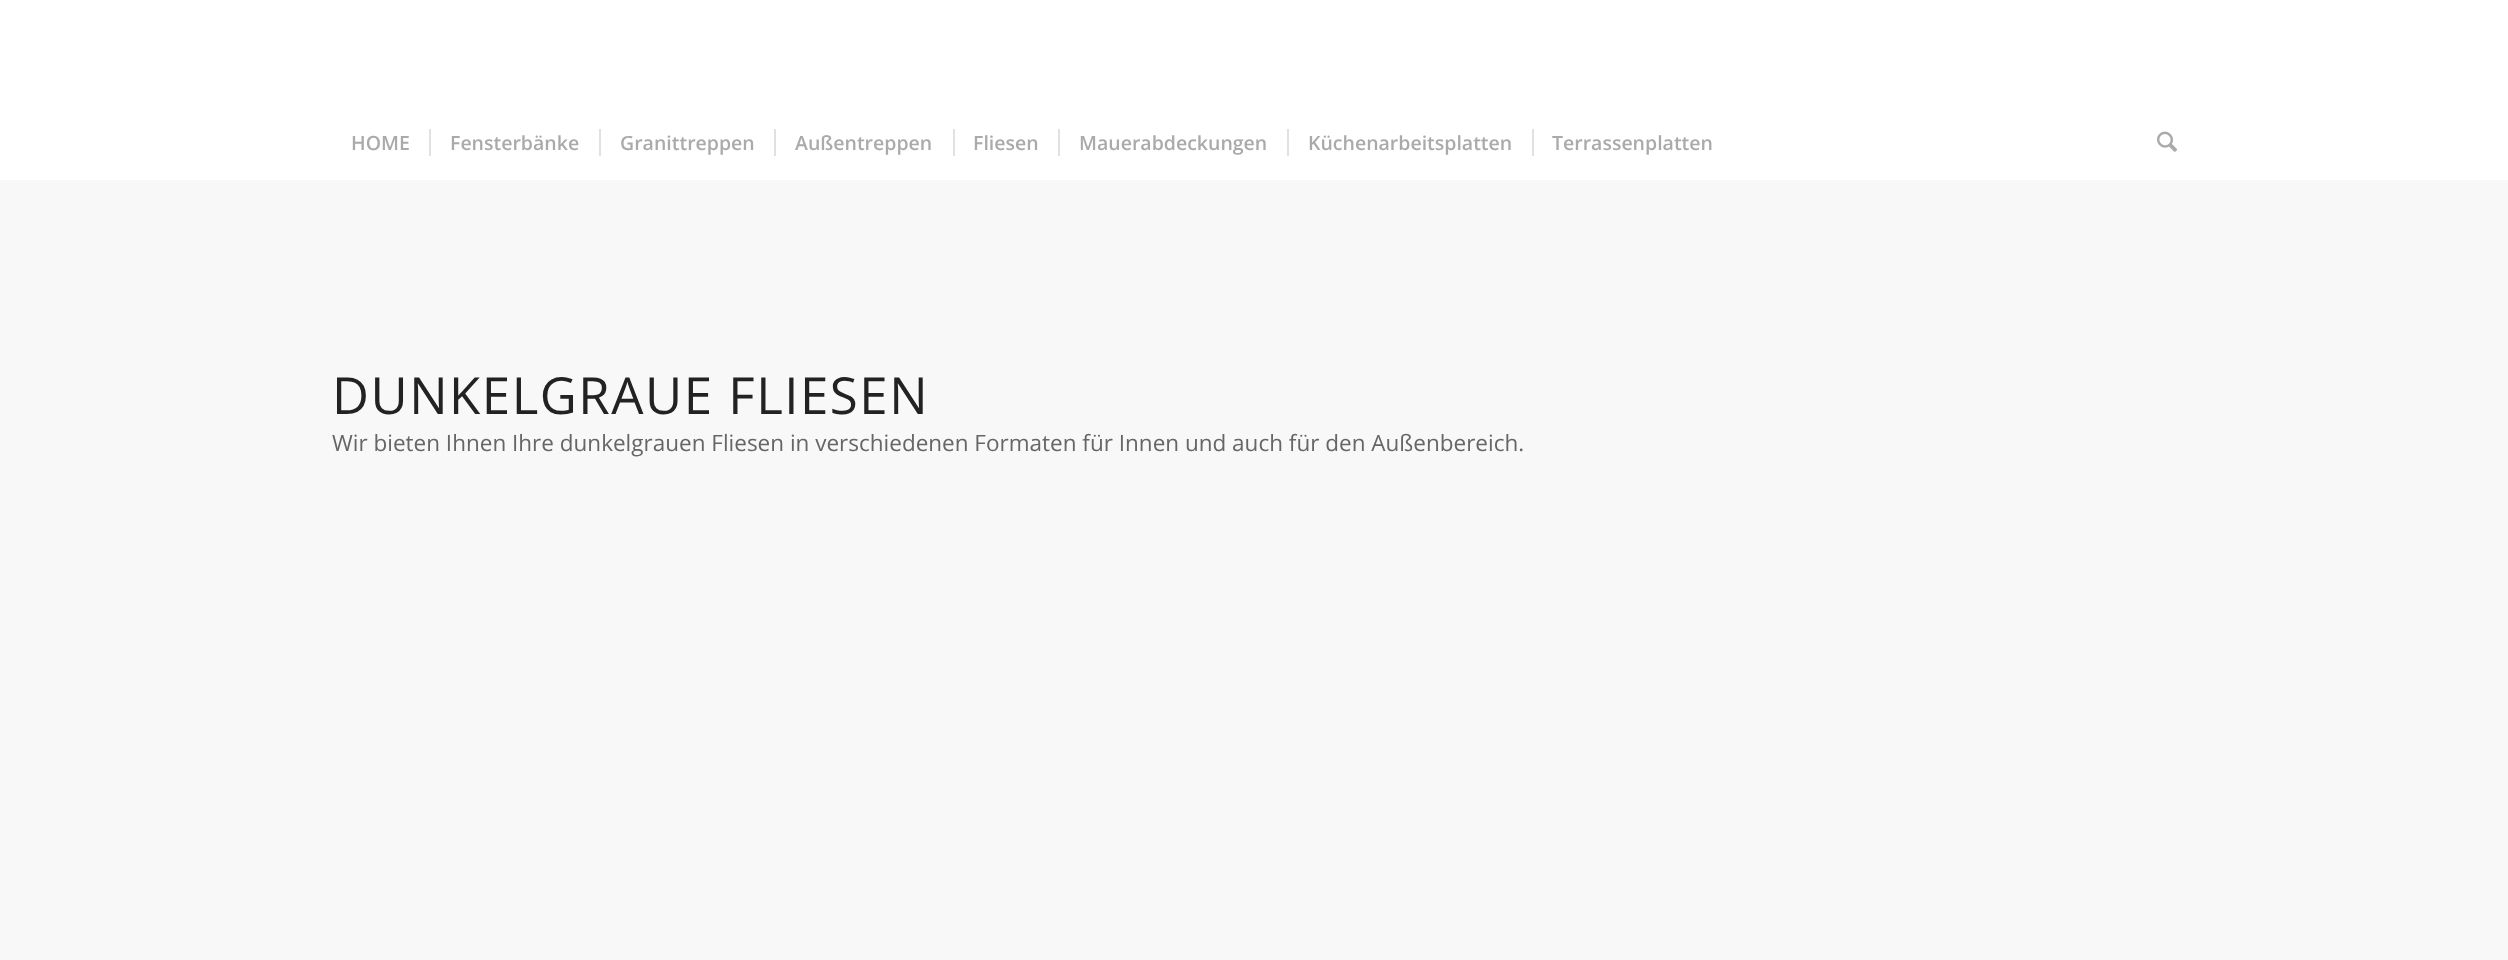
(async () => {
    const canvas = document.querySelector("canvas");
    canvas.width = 2508;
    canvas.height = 960;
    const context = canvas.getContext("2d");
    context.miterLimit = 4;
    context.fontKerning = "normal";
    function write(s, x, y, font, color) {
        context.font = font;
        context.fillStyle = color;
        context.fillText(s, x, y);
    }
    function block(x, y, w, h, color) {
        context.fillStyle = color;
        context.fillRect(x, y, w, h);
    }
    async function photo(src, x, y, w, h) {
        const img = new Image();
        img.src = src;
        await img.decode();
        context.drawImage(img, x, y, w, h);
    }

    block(0, 0, 2508, 960, "rgb(255, 255, 255)");
    write("HOME", 351, 150, "600 19.5px Open Sans", "rgb(170, 170, 170)");
    write("Fensterbänke", 450, 150, "600 19.5px Open Sans", "rgb(170, 170, 170)");
    block(429, 129, 2, 27, "rgb(225, 225, 225)");
    write("Granittreppen", 620, 150, "600 19.5px Open Sans", "rgb(170, 170, 170)");
    block(599, 129, 2, 27, "rgb(225, 225, 225)");
    write("Außentreppen", 795, 150, "600 19.5px Open Sans", "rgb(170, 170, 170)");
    block(774, 129, 2, 27, "rgb(225, 225, 225)");
    write("Fliesen", 973, 150, "600 19.5px Open Sans", "rgb(170, 170, 170)");
    block(953, 129, 2, 27, "rgb(225, 225, 225)");
    write("Mauerabdeckungen", 1079, 150, "600 19.5px Open Sans", "rgb(170, 170, 170)");
    block(1058, 129, 2, 27, "rgb(225, 225, 225)");
    write("Küchenarbeitsplatten", 1308, 150, "600 19.5px Open Sans", "rgb(170, 170, 170)");
    block(1287, 129, 2, 27, "rgb(225, 225, 225)");
    write("Terrassenplatten", 1552, 150, "600 19.5px Open Sans", "rgb(170, 170, 170)");
    block(1532, 129, 2, 27, "rgb(225, 225, 225)");
    await photo("media/1.png", 2157, 131, 20, 21);
    block(0, 180, 2508, 780, "rgb(248, 248, 248)");
    context.letterSpacing = "1.5px";
    write("DUNKELGRAUE FLIESEN", 332, 414, "51px Open Sans", "rgb(34, 34, 34)");
    context.letterSpacing = "0px";
    write("Wir bieten Ihnen Ihre dunkelgrauen Fliesen in verschiedenen Formaten für Innen und auch für den Außenbereich.", 332, 451, "22.5px Open Sans", "rgb(102, 102, 102)");
})();
